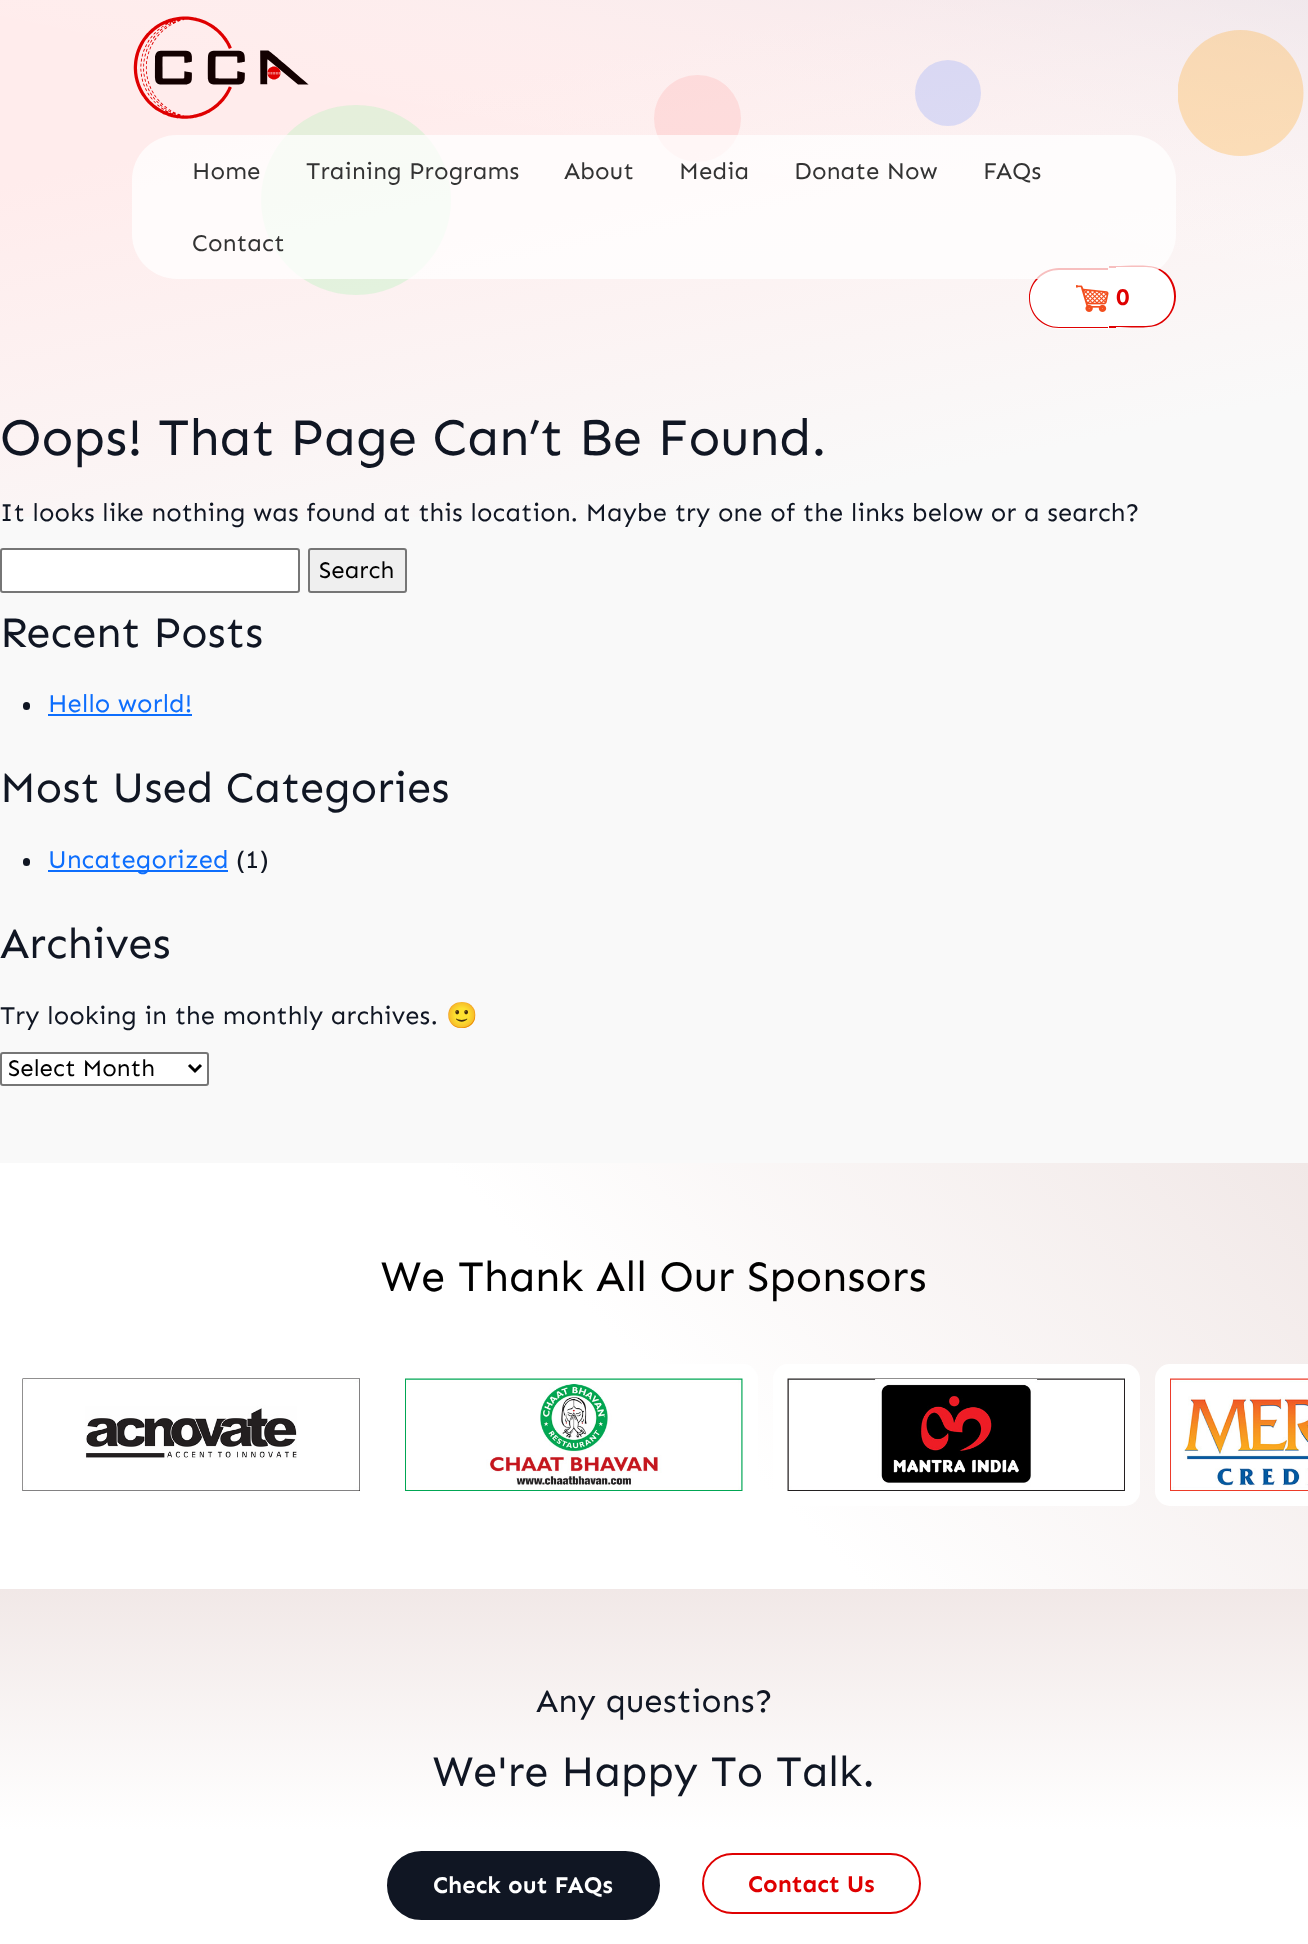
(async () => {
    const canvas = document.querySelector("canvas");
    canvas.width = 1308;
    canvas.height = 1944;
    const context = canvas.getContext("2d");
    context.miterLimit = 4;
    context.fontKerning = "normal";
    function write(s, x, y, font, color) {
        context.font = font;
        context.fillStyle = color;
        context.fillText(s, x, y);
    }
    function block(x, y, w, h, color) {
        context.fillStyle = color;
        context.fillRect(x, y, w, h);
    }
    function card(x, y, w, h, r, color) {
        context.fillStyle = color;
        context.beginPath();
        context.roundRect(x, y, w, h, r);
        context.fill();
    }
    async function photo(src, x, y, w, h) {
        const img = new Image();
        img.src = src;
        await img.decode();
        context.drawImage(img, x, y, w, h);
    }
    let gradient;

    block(0, 0, 1308, 1944, "rgb(249, 249, 249)");
    await photo("media/1.png", 0, 0, 1308, 517);
    context.fillStyle = "rgba(168, 245, 180, 0.3)";
    context.beginPath();
    context.arc(356, 200, 95, 0, Math.PI * 2);
    context.fill();
    context.fillStyle = "rgba(255, 175, 175, 0.3)";
    context.beginPath();
    context.arc(697.5, 118.5, 43.5, 0, Math.PI * 2);
    context.fill();
    context.fillStyle = "rgba(142, 166, 251, 0.3)";
    context.beginPath();
    context.arc(948, 93, 33, 0, Math.PI * 2);
    context.fill();
    context.save();
    context.beginPath();
    context.rect(1178, 30, 126, 126);
    context.clip();
    context.fillStyle = "rgba(255, 172, 47, 0.3)";
    context.beginPath();
    context.arc(1240.5, 93, 63, 0, Math.PI * 2);
    context.fill();
    context.restore();
    await photo("media/2.png", 133, 16, 176, 103);
    context.fillStyle = "rgb(255, 255, 255)";
    context.beginPath();
    context.roundRect(1029, 269, 80, 60, [30, 0, 0, 30]);
    context.fill();
    context.fillStyle = "rgb(223, 0, 1)";
    context.beginPath();
    context.moveTo(1059, 268);
    context.lineTo(1108, 268);
    context.lineTo(1108, 328);
    context.lineTo(1059, 328);
    context.bezierCurveTo(1042, 328, 1029, 315, 1029, 298);
    context.bezierCurveTo(1029, 282, 1042, 268, 1059, 268);
    context.closePath();
    context.moveTo(1059, 270);
    context.lineTo(1108, 270);
    context.lineTo(1108, 327);
    context.lineTo(1059, 327);
    context.bezierCurveTo(1043, 327, 1030, 314, 1030, 298);
    context.bezierCurveTo(1030, 283, 1043, 270, 1059, 270);
    context.closePath();
    context.fill("evenodd");
    block(1109, 266, 7, 61, "rgb(255, 255, 255)");
    block(1109, 266, 7, 2, "rgb(223, 0, 1)");
    context.fillStyle = "rgb(255, 255, 255)";
    context.beginPath();
    context.roundRect(1116, 266, 60, 61, [0, 30, 30, 0]);
    context.fill();
    context.fillStyle = "rgb(223, 0, 1)";
    context.beginPath();
    context.moveTo(1116, 266);
    context.bezierCurveTo(1127, 266, 1148, 264, 1158, 268);
    context.bezierCurveTo(1182, 278, 1182, 314, 1158, 325);
    context.bezierCurveTo(1148, 329, 1127, 327, 1116, 327);
    context.closePath();
    context.moveTo(1116, 267);
    context.lineTo(1146, 267);
    context.bezierCurveTo(1162, 267, 1174, 280, 1174, 296);
    context.lineTo(1174, 297);
    context.bezierCurveTo(1174, 313, 1162, 326, 1146, 326);
    context.lineTo(1116, 326);
    context.closePath();
    context.fill("evenodd");
    card(132, 135, 1044, 144, 45, "rgba(255, 255, 255, 0.75)");
    context.letterSpacing = "0.15px";
    write("Home", 192, 179, "24px Sen", "rgb(51, 51, 51)");
    write("Training Programs", 306, 179, "24px Sen", "rgb(51, 51, 51)");
    write("About", 564, 179, "24px Sen", "rgb(51, 51, 51)");
    write("Media", 679, 179, "24px Sen", "rgb(51, 51, 51)");
    write("Donate Now", 794, 179, "24px Sen", "rgb(51, 51, 51)");
    write("FAQs", 983, 179, "24px Sen", "rgb(51, 51, 51)");
    write("Contact", 192, 251, "24px Sen", "rgb(51, 51, 51)");
    await photo("media/3.png", 1076, 285, 33, 27);
    context.letterSpacing = "0px";
    write("0", 1116, 305, "bold 24px Sen", "rgb(223, 0, 1)");
    block(1109, 326, 7, 2, "rgb(223, 0, 1)");
    write("Oops! That Page Can’t Be Found.", 0, 455, "52.6px Sen", "rgb(16, 22, 35)");
    context.letterSpacing = "0.15px";
    write("It looks like nothing was found at this location. Maybe try one of the links below or a search?", 0, 521, "25.5px Sen", "rgb(16, 22, 35)");
    context.fillStyle = "rgb(255, 255, 255)";
    context.beginPath();
    context.roundRect(1, 549, 298, 43, 2);
    context.fill();
    context.strokeStyle = "rgb(118, 118, 118)";
    context.lineWidth = 2;
    context.stroke();
    context.fillStyle = "rgb(239, 239, 239)";
    context.beginPath();
    context.roundRect(309, 549, 97, 43, 2);
    context.fill();
    context.stroke();
    context.letterSpacing = "0px";
    write("Search", 319, 578, "24px Sen", "rgb(0, 0, 0)");
    write("Recent Posts", 0, 647, "43.5px Sen", "rgb(16, 22, 35)");
    card(23, 702, 7, 8, 3.5, "rgb(16, 22, 35)");
    context.letterSpacing = "0.15px";
    write("Hello world!", 48, 712, "25.5px Sen", "rgb(13, 110, 253)");
    block(48, 714, 144, 2, "rgb(13, 110, 253)");
    context.letterSpacing = "0px";
    write("Most Used Categories", 0, 802, "43.5px Sen", "rgb(16, 22, 35)");
    card(23, 858, 7, 8, 3.5, "rgb(16, 22, 35)");
    block(48, 870, 180, 2, "rgb(13, 110, 253)");
    context.letterSpacing = "0.15px";
    write("Uncategorized", 48, 868, "25.5px Sen", "rgb(13, 110, 253)");
    write("(1)", 236, 868, "25.5px Sen", "rgb(16, 22, 35)");
    context.letterSpacing = "0px";
    write("Archives", 0, 958, "43.5px Sen", "rgb(16, 22, 35)");
    context.letterSpacing = "0.15px";
    write("Try looking in the monthly archives.", 0, 1024, "25.5px Sen", "rgb(16, 22, 35)");
    write("🙂", 446, 1024, "25.5px Noto Color Emoji", "rgb(16, 22, 35)");
    context.fillStyle = "rgb(255, 255, 255)";
    context.beginPath();
    context.roundRect(1, 1053, 207, 32, 2);
    context.fill();
    context.stroke();
    context.beginPath();
    context.moveTo(189, 1065);
    context.lineTo(195, 1071);
    context.lineTo(201, 1065);
    context.strokeStyle = "rgb(0, 0, 0)";
    context.lineWidth = 3;
    context.stroke();
    context.letterSpacing = "0px";
    write("Select Month", 8, 1076, "24px Sen", "rgb(0, 0, 0)");
    gradient = context.createLinearGradient(221, 1809, 1088, 942);
    gradient.addColorStop(0, "rgb(255, 255, 255)");
    gradient.addColorStop(0.5, "rgb(255, 255, 255)");
    gradient.addColorStop(1, "rgb(241, 232, 231)");
    context.fillStyle = gradient;
    context.fillRect(0, 1163, 1308, 426);
    write("We Thank All Our Sponsors", 381, 1291, "43.5px Sen", "rgb(0, 0, 0)");
    await photo("media/4.png", 22, 1378, 338, 113);
    card(390, 1364, 368, 142, 15, "rgb(255, 255, 255)");
    await photo("media/5.png", 405, 1378, 338, 113);
    card(773, 1364, 367, 142, 15, "rgb(255, 255, 255)");
    await photo("media/6.png", 787, 1378, 338, 113);
    context.beginPath();
    context.roundRect(1155, 1364, 153, 142, [15, 0, 0, 15]);
    context.fill();
    await photo("media/7.png", 1170, 1378, 138, 113);
    gradient = context.createLinearGradient(654, 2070, 654, 1589);
    gradient.addColorStop(0, "rgb(255, 255, 255)");
    gradient.addColorStop(0.5, "rgb(255, 255, 255)");
    gradient.addColorStop(1, "rgb(241, 232, 231)");
    context.fillStyle = gradient;
    context.fillRect(0, 1589, 1308, 355);
    context.letterSpacing = "0.15px";
    write("Any questions?", 536, 1712, "33px Sen", "rgb(16, 22, 35)");
    context.letterSpacing = "0px";
    write("We're Happy To Talk.", 433, 1786, "43.5px Sen", "rgb(16, 22, 35)");
    context.beginPath();
    context.roundRect(388, 1852, 271, 67, 33.5);
    context.fill();
    context.strokeStyle = "rgb(16, 22, 35)";
    context.lineWidth = 2;
    context.stroke();
    write("Check out FAQs", 433, 1893, "bold 24px Sen", "rgb(255, 255, 255)");
    context.beginPath();
    context.roundRect(703, 1854, 217, 59, 29.5);
    context.strokeStyle = "rgb(223, 0, 1)";
    context.stroke();
    write("Contact Us", 748, 1892, "bold 24px Sen", "rgb(223, 0, 1)");
})();
